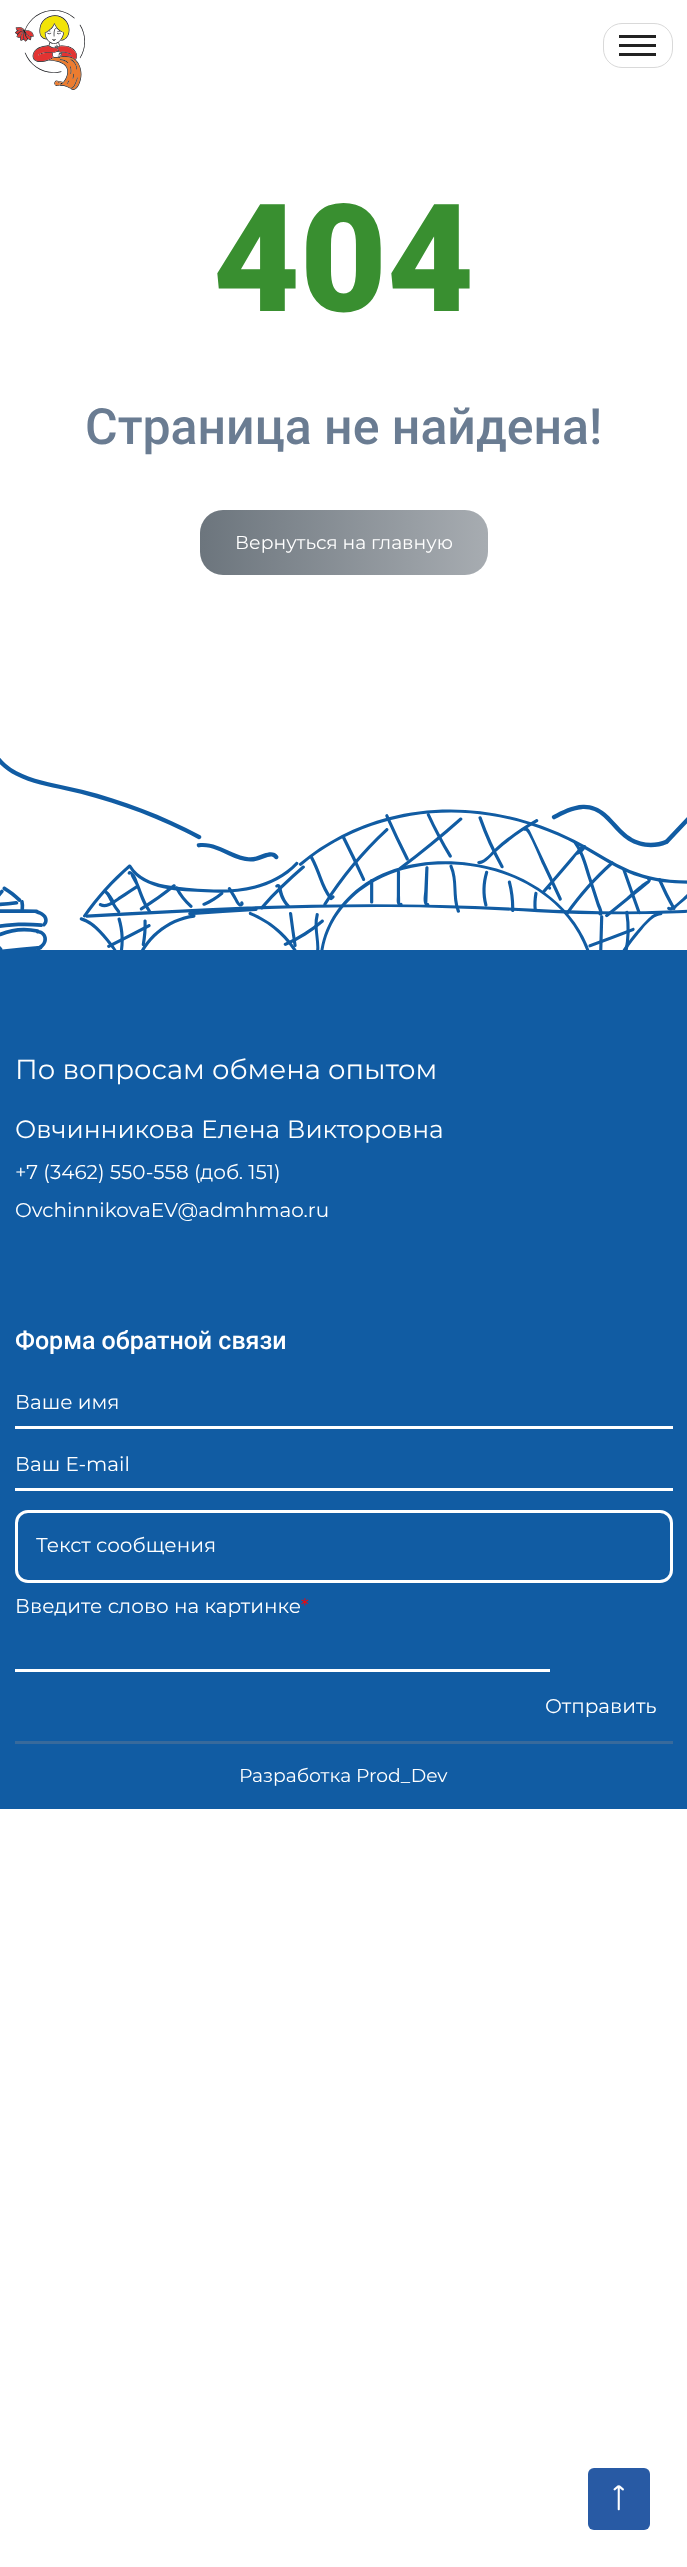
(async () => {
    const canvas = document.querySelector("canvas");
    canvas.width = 687;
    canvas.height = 2567;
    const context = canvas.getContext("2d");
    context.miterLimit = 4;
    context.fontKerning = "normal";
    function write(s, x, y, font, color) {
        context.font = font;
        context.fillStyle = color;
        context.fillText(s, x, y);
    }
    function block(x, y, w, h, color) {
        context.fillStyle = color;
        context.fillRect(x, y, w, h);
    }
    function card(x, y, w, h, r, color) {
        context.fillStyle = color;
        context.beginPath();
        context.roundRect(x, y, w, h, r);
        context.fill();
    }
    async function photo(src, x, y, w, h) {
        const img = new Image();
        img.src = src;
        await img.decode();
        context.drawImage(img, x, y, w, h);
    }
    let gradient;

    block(0, 0, 687, 2567, "rgb(255, 255, 255)");
    await photo("media/1.png", 15, 10, 70, 80);
    context.beginPath();
    context.roundRect(603.5, 23.5, 69, 44, 18.5);
    context.strokeStyle = "rgb(217, 217, 217)";
    context.stroke();
    block(619, 35, 37, 3, "rgb(34, 34, 34)");
    block(619, 44, 37, 3, "rgb(34, 34, 34)");
    block(619, 53, 37, 3, "rgb(34, 34, 34)");
    write("404", 213, 311, "900 150px Roboto", "rgb(57, 143, 48)");
    write("Страница не найдена!", 85, 444, "500 50px Roboto", "rgb(106, 124, 146)");
    gradient = context.createLinearGradient(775, 543, 200, 543);
    gradient.addColorStop(0, "rgb(123, 131, 138)");
    gradient.addColorStop(0.5, "rgb(167, 172, 177)");
    gradient.addColorStop(1, "rgb(108, 117, 125)");
    context.fillStyle = gradient;
    context.beginPath();
    context.roundRect(200, 510, 288, 65, 23);
    context.fill();
    write("Вернуться на главную", 235, 549, "18.75px Montserrat", "rgb(255, 255, 255)");
    await photo("media/2.png", 0, 758, 687, 192);
    block(0, 950, 687, 859, "rgb(17, 92, 163)");
    write("По вопросам обмена опытом", 15, 1079, "27.5px Montserrat", "rgb(255, 255, 255)");
    write("Овчинникова Елена Викторовна", 15, 1138, "25px Montserrat", "rgb(255, 255, 255)");
    write("+7 (3462) 550-558 (доб. 151)", 15, 1179, "20px Montserrat", "rgb(255, 255, 255)");
    write("OvchinnikovaEV@admhmao.ru", 15, 1217, "20px Montserrat", "rgb(255, 255, 255)");
    write("Форма обратной связи", 15, 1349, "500 25px Roboto", "rgb(255, 255, 255)");
    block(15, 1426, 658, 3, "rgb(255, 255, 255)");
    write("Ваше имя", 15, 1409, "20px Montserrat", "rgb(255, 255, 255)");
    block(15, 1488, 658, 3, "rgb(255, 255, 255)");
    write("Ваш E-mail", 15, 1471, "20px Montserrat", "rgb(255, 255, 255)");
    context.beginPath();
    context.roundRect(16.5, 1511.5, 655, 70, 11.5);
    context.strokeStyle = "rgb(255, 255, 255)";
    context.lineWidth = 3;
    context.stroke();
    write("Текст сообщения", 36, 1552, "20px Montserrat", "rgb(255, 255, 255)");
    write("Введите слово на картинке", 15, 1613, "20px Montserrat", "rgb(255, 255, 255)");
    write("*", 301, 1613, "20px Montserrat", "rgb(255, 0, 0)");
    block(15, 1669, 535, 3, "rgb(255, 255, 255)");
    write("Отправить", 545, 1713, "20px Montserrat", "rgb(255, 255, 255)");
    block(15, 1741, 658, 3, "rgb(56, 106, 156)");
    write("Разработка Prod_Dev", 239, 1782, "18.75px Montserrat", "rgb(255, 255, 255)");
    card(588, 2468, 62, 62, 6, "rgb(40, 90, 164)");
    await photo("media/3.png", 613, 2485, 11, 26);
})();
